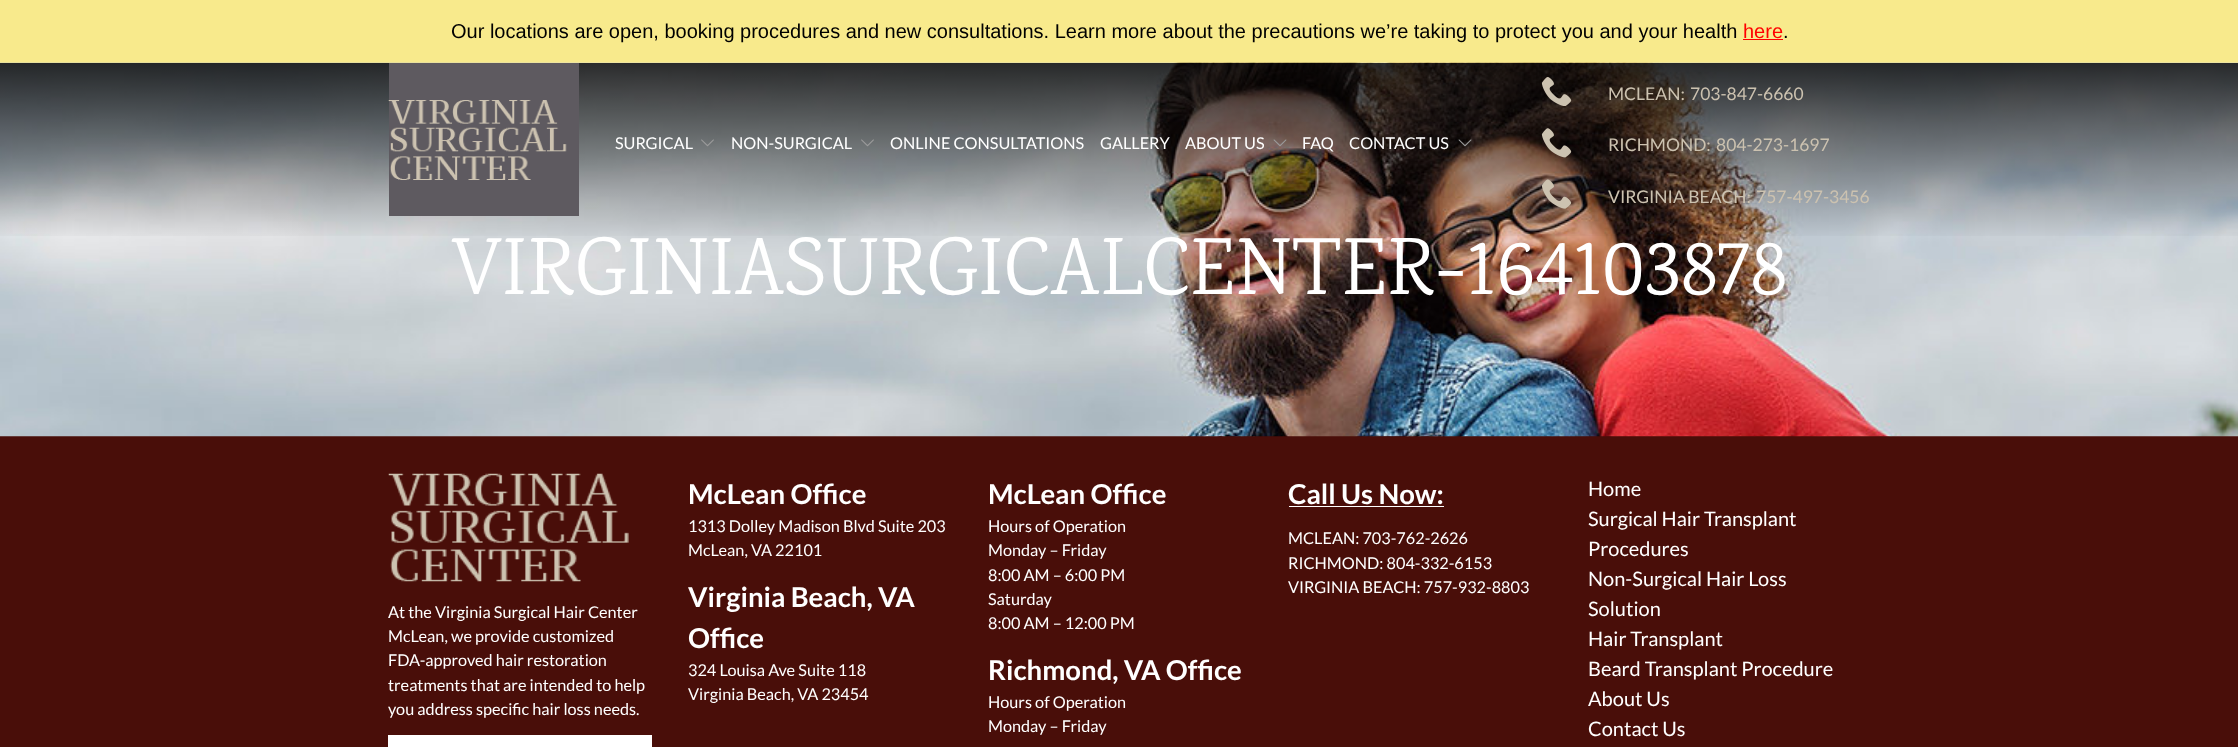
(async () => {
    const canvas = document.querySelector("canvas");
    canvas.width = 2238;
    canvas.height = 747;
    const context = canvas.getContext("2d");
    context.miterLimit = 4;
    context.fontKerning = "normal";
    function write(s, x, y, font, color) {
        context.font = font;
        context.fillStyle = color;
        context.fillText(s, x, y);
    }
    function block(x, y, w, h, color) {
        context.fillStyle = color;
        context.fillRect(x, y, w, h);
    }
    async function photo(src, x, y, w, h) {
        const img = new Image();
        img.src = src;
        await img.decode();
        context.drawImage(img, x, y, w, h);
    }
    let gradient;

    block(0, 0, 2238, 747, "rgb(248, 234, 140)");
    write("Our locations are open, booking procedures and new consultations. Learn more about the precautions we’re taking to protect you and your health", 451, 38, "20px Liberation Sans", "rgb(0, 0, 0)");
    write("here", 1743, 38, "20px Liberation Sans", "rgb(255, 0, 0)");
    write(".", 1783, 38, "20px Liberation Sans", "rgb(0, 0, 0)");
    block(1743, 39, 40, 1, "rgb(255, 0, 0)");
    block(0, 436, 2238, 311, "rgb(73, 14, 9)");
    await photo("media/9.png", 0, 62, 2238, 375);
    gradient = context.createLinearGradient(1119, 241, 1119, 63);
    gradient.addColorStop(0, "rgba(0, 0, 0, 0)");
    gradient.addColorStop(1, "rgba(0, 0, 0, 0.8)");
    context.fillStyle = gradient;
    context.fillRect(0, 63, 2238, 173);
    block(389, 63, 190, 153, "rgb(94, 90, 96)");
    await photo("media/1.png", 388, 100, 179, 80);
    write("SURGICAL", 615, 149, "16.25px Lato", "rgb(255, 255, 255)");
    await photo("media/2.png", 701, 139, 13, 8);
    write("NON-SURGICAL", 731, 149, "16.25px Lato", "rgb(255, 255, 255)");
    await photo("media/3.png", 861, 139, 13, 8);
    write("ONLINE CONSULTATIONS", 890, 149, "16.25px Lato", "rgb(255, 255, 255)");
    write("GALLERY", 1100, 149, "16.25px Lato", "rgb(255, 255, 255)");
    write("ABOUT US", 1185, 149, "16.25px Lato", "rgb(255, 255, 255)");
    await photo("media/4.png", 1273, 139, 14, 8);
    write("FAQ", 1302, 149, "16.25px Lato", "rgb(255, 255, 255)");
    write("CONTACT US", 1349, 149, "16.25px Lato", "rgb(255, 255, 255)");
    await photo("media/5.png", 1458, 139, 14, 8);
    await photo("media/6.png", 1541, 77, 31, 29);
    write("MCLEAN:", 1608, 100, "17.5px Lato", "rgb(204, 194, 176)");
    write("703-847-6660", 1690, 100, "17.5px Lato", "rgb(204, 194, 176)");
    await photo("media/7.png", 1541, 128, 31, 30);
    write("RICHMOND:", 1608, 151, "17.5px Lato", "rgb(204, 194, 176)");
    write("804-273-1697", 1716, 151, "17.5px Lato", "rgb(204, 194, 176)");
    await photo("media/8.png", 1541, 179, 31, 30);
    write("VIRGINIA BEACH:", 1608, 203, "17.5px Lato", "rgb(204, 194, 176)");
    write("757-497-3456", 1756, 203, "17.5px Lato", "rgb(204, 194, 176)");
    write("VIRGINIASURGICALCENTER-164103878", 451, 294, "82.5px Karma", "rgb(255, 255, 255)");
    write("McLean Office", 688, 504, "bold 27.5px Lato", "rgb(255, 255, 255)");
    write("1313 Dolley Madison Blvd Suite 203", 688, 532, "16.25px Lato", "rgb(255, 255, 255)");
    write("McLean, VA 22101", 688, 556, "16.25px Lato", "rgb(255, 255, 255)");
    write("Virginia Beach, VA", 688, 607, "bold 27.5px Lato", "rgb(255, 255, 255)");
    write("Office", 688, 648, "bold 27.5px Lato", "rgb(255, 255, 255)");
    write("324 Louisa Ave Suite 118", 688, 676, "16.25px Lato", "rgb(255, 255, 255)");
    write("Virginia Beach, VA 23454", 688, 700, "16.25px Lato", "rgb(255, 255, 255)");
    write("McLean Office", 988, 504, "bold 27.5px Lato", "rgb(255, 255, 255)");
    write("Hours of Operation", 988, 532, "16.25px Lato", "rgb(255, 255, 255)");
    write("Monday – Friday", 988, 556, "16.25px Lato", "rgb(255, 255, 255)");
    write("8:00 AM – 6:00 PM", 988, 581, "16.25px Lato", "rgb(255, 255, 255)");
    write("Saturday", 988, 605, "16.25px Lato", "rgb(255, 255, 255)");
    write("8:00 AM – 12:00 PM", 988, 629, "16.25px Lato", "rgb(255, 255, 255)");
    write("Richmond, VA Office", 988, 680, "bold 27.5px Lato", "rgb(255, 255, 255)");
    write("Hours of Operation", 988, 708, "16.25px Lato", "rgb(255, 255, 255)");
    write("Monday – Friday", 988, 732, "16.25px Lato", "rgb(255, 255, 255)");
    write("Call Us Now:", 1288, 504, "bold 27.5px Lato", "rgb(255, 255, 255)");
    block(1289, 506, 155, 1, "rgb(255, 255, 255)");
    write("MCLEAN: 703-762-2626", 1288, 544, "16.25px Lato", "rgb(255, 255, 255)");
    write("RICHMOND: 804-332-6153", 1288, 569, "16.25px Lato", "rgb(255, 255, 255)");
    write("VIRGINIA BEACH: 757-932-8803", 1288, 593, "16.25px Lato", "rgb(255, 255, 255)");
    write("Home", 1588, 496, "20px Lato", "rgb(255, 255, 255)");
    write("Surgical Hair Transplant", 1588, 526, "20px Lato", "rgb(255, 255, 255)");
    write("Procedures", 1588, 556, "20px Lato", "rgb(255, 255, 255)");
    write("Non-Surgical Hair Loss", 1588, 586, "20px Lato", "rgb(255, 255, 255)");
    write("Solution", 1588, 616, "20px Lato", "rgb(255, 255, 255)");
    write("Hair Transplant", 1588, 646, "20px Lato", "rgb(255, 255, 255)");
    write("Beard Transplant Procedure", 1588, 676, "20px Lato", "rgb(255, 255, 255)");
    write("About Us", 1588, 706, "20px Lato", "rgb(255, 255, 255)");
    write("Contact Us", 1588, 736, "20px Lato", "rgb(255, 255, 255)");
    await photo("media/10.png", 388, 473, 241, 109);
    write("At the Virginia Surgical Hair Center", 388, 618, "16.25px Lato", "rgb(255, 255, 255)");
    write("McLean, we provide customized", 388, 642, "16.25px Lato", "rgb(255, 255, 255)");
    write("FDA-approved hair restoration", 388, 666, "16.25px Lato", "rgb(255, 255, 255)");
    write("treatments that are intended to help", 388, 691, "16.25px Lato", "rgb(255, 255, 255)");
    write("you address specific hair loss needs.", 388, 715, "16.25px Lato", "rgb(255, 255, 255)");
    block(388, 735, 264, 12, "rgb(255, 255, 255)");
})();
